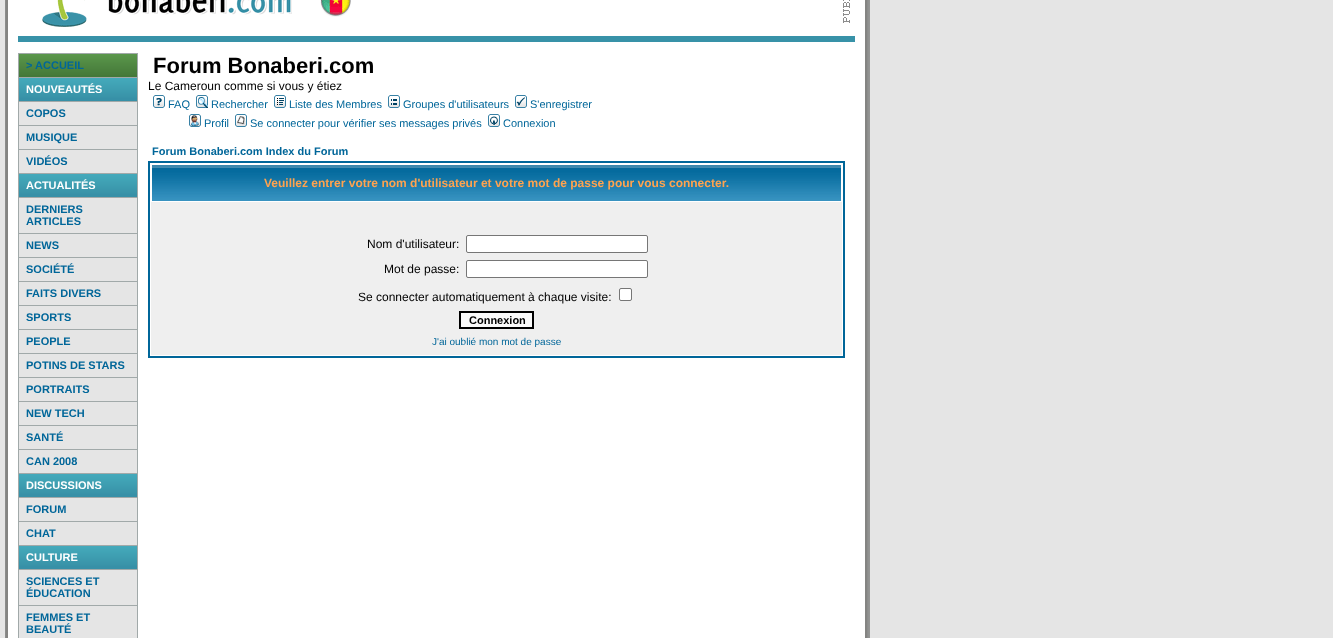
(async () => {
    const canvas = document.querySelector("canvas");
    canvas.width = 1333;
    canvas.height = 638;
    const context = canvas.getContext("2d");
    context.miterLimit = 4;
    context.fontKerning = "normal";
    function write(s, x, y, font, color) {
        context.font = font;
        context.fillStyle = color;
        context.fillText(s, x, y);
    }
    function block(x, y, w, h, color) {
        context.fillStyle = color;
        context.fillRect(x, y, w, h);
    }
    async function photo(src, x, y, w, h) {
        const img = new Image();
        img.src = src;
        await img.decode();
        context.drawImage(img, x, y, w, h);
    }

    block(0, 0, 1333, 638, "rgb(229, 229, 229)");
    await photo("media/1.png", 5, 0, 865, 638);
    await photo("media/2.png", 42, 0, 309, 27);
    await photo("media/3.png", 843, 0, 7, 23);
    block(18, 36, 837, 6, "rgb(56, 146, 168)");
    block(18, 53, 120, 1, "rgb(161, 169, 169)");
    block(137, 53, 1, 585, "rgb(161, 169, 169)");
    block(18, 53, 1, 585, "rgb(161, 169, 169)");
    await photo("media/4.png", 19, 54, 118, 23);
    block(19, 77, 118, 1, "rgb(161, 169, 169)");
    write("> ACCUEIL", 26, 69, "bold 11px Liberation Sans", "rgb(0, 102, 153)");
    await photo("media/5.png", 19, 78, 118, 23);
    block(19, 101, 118, 1, "rgb(161, 169, 169)");
    write("NOUVEAUTÉS", 26, 93, "bold 11px Liberation Sans", "rgb(255, 255, 255)");
    block(19, 102, 118, 23, "rgb(229, 229, 229)");
    block(19, 125, 118, 1, "rgb(161, 169, 169)");
    write("COPOS", 26, 117, "bold 11px Liberation Sans", "rgb(0, 102, 153)");
    block(19, 126, 118, 23, "rgb(229, 229, 229)");
    block(19, 149, 118, 1, "rgb(161, 169, 169)");
    write("MUSIQUE", 26, 141, "bold 11px Liberation Sans", "rgb(0, 102, 153)");
    block(19, 150, 118, 23, "rgb(229, 229, 229)");
    block(19, 173, 118, 1, "rgb(161, 169, 169)");
    write("VIDÉOS", 26, 165, "bold 11px Liberation Sans", "rgb(0, 102, 153)");
    await photo("media/5.png", 19, 174, 118, 23);
    block(19, 197, 118, 1, "rgb(161, 169, 169)");
    write("ACTUALITÉS", 26, 189, "bold 11px Liberation Sans", "rgb(255, 255, 255)");
    block(19, 198, 118, 35, "rgb(229, 229, 229)");
    block(19, 233, 118, 1, "rgb(161, 169, 169)");
    write("DERNIERS", 26, 213, "bold 11px Liberation Sans", "rgb(0, 102, 153)");
    write("ARTICLES", 26, 225, "bold 11px Liberation Sans", "rgb(0, 102, 153)");
    block(19, 234, 118, 23, "rgb(229, 229, 229)");
    block(19, 257, 118, 1, "rgb(161, 169, 169)");
    write("NEWS", 26, 249, "bold 11px Liberation Sans", "rgb(0, 102, 153)");
    block(19, 258, 118, 23, "rgb(229, 229, 229)");
    block(19, 281, 118, 1, "rgb(161, 169, 169)");
    write("SOCIÉTÉ", 26, 273, "bold 11px Liberation Sans", "rgb(0, 102, 153)");
    block(19, 282, 118, 23, "rgb(229, 229, 229)");
    block(19, 305, 118, 1, "rgb(161, 169, 169)");
    write("FAITS DIVERS", 26, 297, "bold 11px Liberation Sans", "rgb(0, 102, 153)");
    block(19, 306, 118, 23, "rgb(229, 229, 229)");
    block(19, 329, 118, 1, "rgb(161, 169, 169)");
    write("SPORTS", 26, 321, "bold 11px Liberation Sans", "rgb(0, 102, 153)");
    block(19, 330, 118, 23, "rgb(229, 229, 229)");
    block(19, 353, 118, 1, "rgb(161, 169, 169)");
    write("PEOPLE", 26, 345, "bold 11px Liberation Sans", "rgb(0, 102, 153)");
    block(19, 354, 118, 23, "rgb(229, 229, 229)");
    block(19, 377, 118, 1, "rgb(161, 169, 169)");
    write("POTINS DE STARS", 26, 369, "bold 11px Liberation Sans", "rgb(0, 102, 153)");
    block(19, 378, 118, 23, "rgb(229, 229, 229)");
    block(19, 401, 118, 1, "rgb(161, 169, 169)");
    write("PORTRAITS", 26, 393, "bold 11px Liberation Sans", "rgb(0, 102, 153)");
    block(19, 402, 118, 23, "rgb(229, 229, 229)");
    block(19, 425, 118, 1, "rgb(161, 169, 169)");
    write("NEW TECH", 26, 417, "bold 11px Liberation Sans", "rgb(0, 102, 153)");
    block(19, 426, 118, 23, "rgb(229, 229, 229)");
    block(19, 449, 118, 1, "rgb(161, 169, 169)");
    write("SANTÉ", 26, 441, "bold 11px Liberation Sans", "rgb(0, 102, 153)");
    block(19, 450, 118, 23, "rgb(229, 229, 229)");
    block(19, 473, 118, 1, "rgb(161, 169, 169)");
    write("CAN 2008", 26, 465, "bold 11px Liberation Sans", "rgb(0, 102, 153)");
    await photo("media/5.png", 19, 474, 118, 23);
    block(19, 497, 118, 1, "rgb(161, 169, 169)");
    write("DISCUSSIONS", 26, 489, "bold 11px Liberation Sans", "rgb(255, 255, 255)");
    block(19, 498, 118, 23, "rgb(229, 229, 229)");
    block(19, 521, 118, 1, "rgb(161, 169, 169)");
    write("FORUM", 26, 513, "bold 11px Liberation Sans", "rgb(0, 102, 153)");
    block(19, 522, 118, 23, "rgb(229, 229, 229)");
    block(19, 545, 118, 1, "rgb(161, 169, 169)");
    write("CHAT", 26, 537, "bold 11px Liberation Sans", "rgb(0, 102, 153)");
    await photo("media/5.png", 19, 546, 118, 23);
    block(19, 569, 118, 1, "rgb(161, 169, 169)");
    write("CULTURE", 26, 561, "bold 11px Liberation Sans", "rgb(255, 255, 255)");
    block(19, 570, 118, 35, "rgb(229, 229, 229)");
    block(19, 605, 118, 1, "rgb(161, 169, 169)");
    write("SCIENCES ET", 26, 585, "bold 11px Liberation Sans", "rgb(0, 102, 153)");
    write("ÉDUCATION", 26, 597, "bold 11px Liberation Sans", "rgb(0, 102, 153)");
    block(19, 606, 118, 32, "rgb(229, 229, 229)");
    write("FEMMES ET", 26, 621, "bold 11px Liberation Sans", "rgb(0, 102, 153)");
    write("BEAUTÉ", 26, 633, "bold 11px Liberation Sans", "rgb(0, 102, 153)");
    write("Forum Bonaberi.com", 153, 73, "bold 22px Liberation Sans", "rgb(0, 0, 0)");
    write("Le Cameroun comme si vous y étiez", 148, 90, "12px Liberation Sans", "rgb(0, 0, 0)");
    await photo("media/6.png", 153, 95, 12, 13);
    write("FAQ", 168, 108, "11px Liberation Sans", "rgb(0, 102, 153)");
    await photo("media/7.png", 196, 95, 12, 13);
    write("Rechercher", 211, 108, "11px Liberation Sans", "rgb(0, 102, 153)");
    await photo("media/8.png", 274, 95, 12, 13);
    write("Liste des Membres", 289, 108, "11px Liberation Sans", "rgb(0, 102, 153)");
    await photo("media/9.png", 388, 95, 12, 13);
    write("Groupes d'utilisateurs", 403, 108, "11px Liberation Sans", "rgb(0, 102, 153)");
    await photo("media/10.png", 515, 95, 12, 13);
    write("S'enregistrer", 530, 108, "11px Liberation Sans", "rgb(0, 102, 153)");
    await photo("media/11.png", 189, 114, 12, 13);
    write("Profil", 204, 127, "11px Liberation Sans", "rgb(0, 102, 153)");
    await photo("media/12.png", 235, 114, 12, 13);
    write("Se connecter pour vérifier ses messages privés", 250, 127, "11px Liberation Sans", "rgb(0, 102, 153)");
    await photo("media/13.png", 488, 114, 12, 13);
    write("Connexion", 503, 127, "11px Liberation Sans", "rgb(0, 102, 153)");
    write("Forum Bonaberi.com Index du Forum", 152, 155, "bold 11px Liberation Sans", "rgb(0, 102, 153)");
    context.strokeStyle = "rgb(0, 102, 153)";
    context.lineWidth = 2;
    context.strokeRect(149, 162, 695, 195);
    await photo("media/14.png", 152, 165, 689, 36);
    write("Veuillez entrer votre nom d'utilisateur et votre mot de passe pour vous connecter.", 264, 187, "bold 12px Liberation Sans", "rgb(255, 163, 79)");
    block(151, 202, 691, 153, "rgb(239, 239, 239)");
    write("Nom d'utilisateur:", 367, 248, "12px Liberation Sans", "rgb(0, 0, 0)");
    context.fillStyle = "rgb(255, 255, 255)";
    context.beginPath();
    context.roundRect(466.5, 235.5, 181, 17, 1.5);
    context.fill();
    context.strokeStyle = "rgb(118, 118, 118)";
    context.lineWidth = 1;
    context.stroke();
    write("Mot de passe:", 384, 273, "12px Liberation Sans", "rgb(0, 0, 0)");
    context.fillStyle = "rgb(255, 255, 255)";
    context.beginPath();
    context.roundRect(466.5, 260.5, 181, 17, 1.5);
    context.fill();
    context.stroke();
    write("Se connecter automatiquement à chaque visite:", 358, 301, "12px Liberation Sans", "rgb(0, 0, 0)");
    context.fillStyle = "rgb(255, 255, 255)";
    context.beginPath();
    context.roundRect(619.5, 288.5, 12, 12, 1.5);
    context.fill();
    context.stroke();
    context.fillStyle = "rgb(250, 250, 250)";
    context.beginPath();
    context.rect(460, 312, 73, 16);
    context.fill();
    context.strokeStyle = "rgb(0, 0, 0)";
    context.lineWidth = 2;
    context.stroke();
    write("Connexion", 469, 324, "bold 11px Liberation Sans", "rgb(0, 0, 0)");
    write("J'ai oublié mon mot de passe", 432, 345, "10px Liberation Sans", "rgb(0, 102, 153)");
})();
